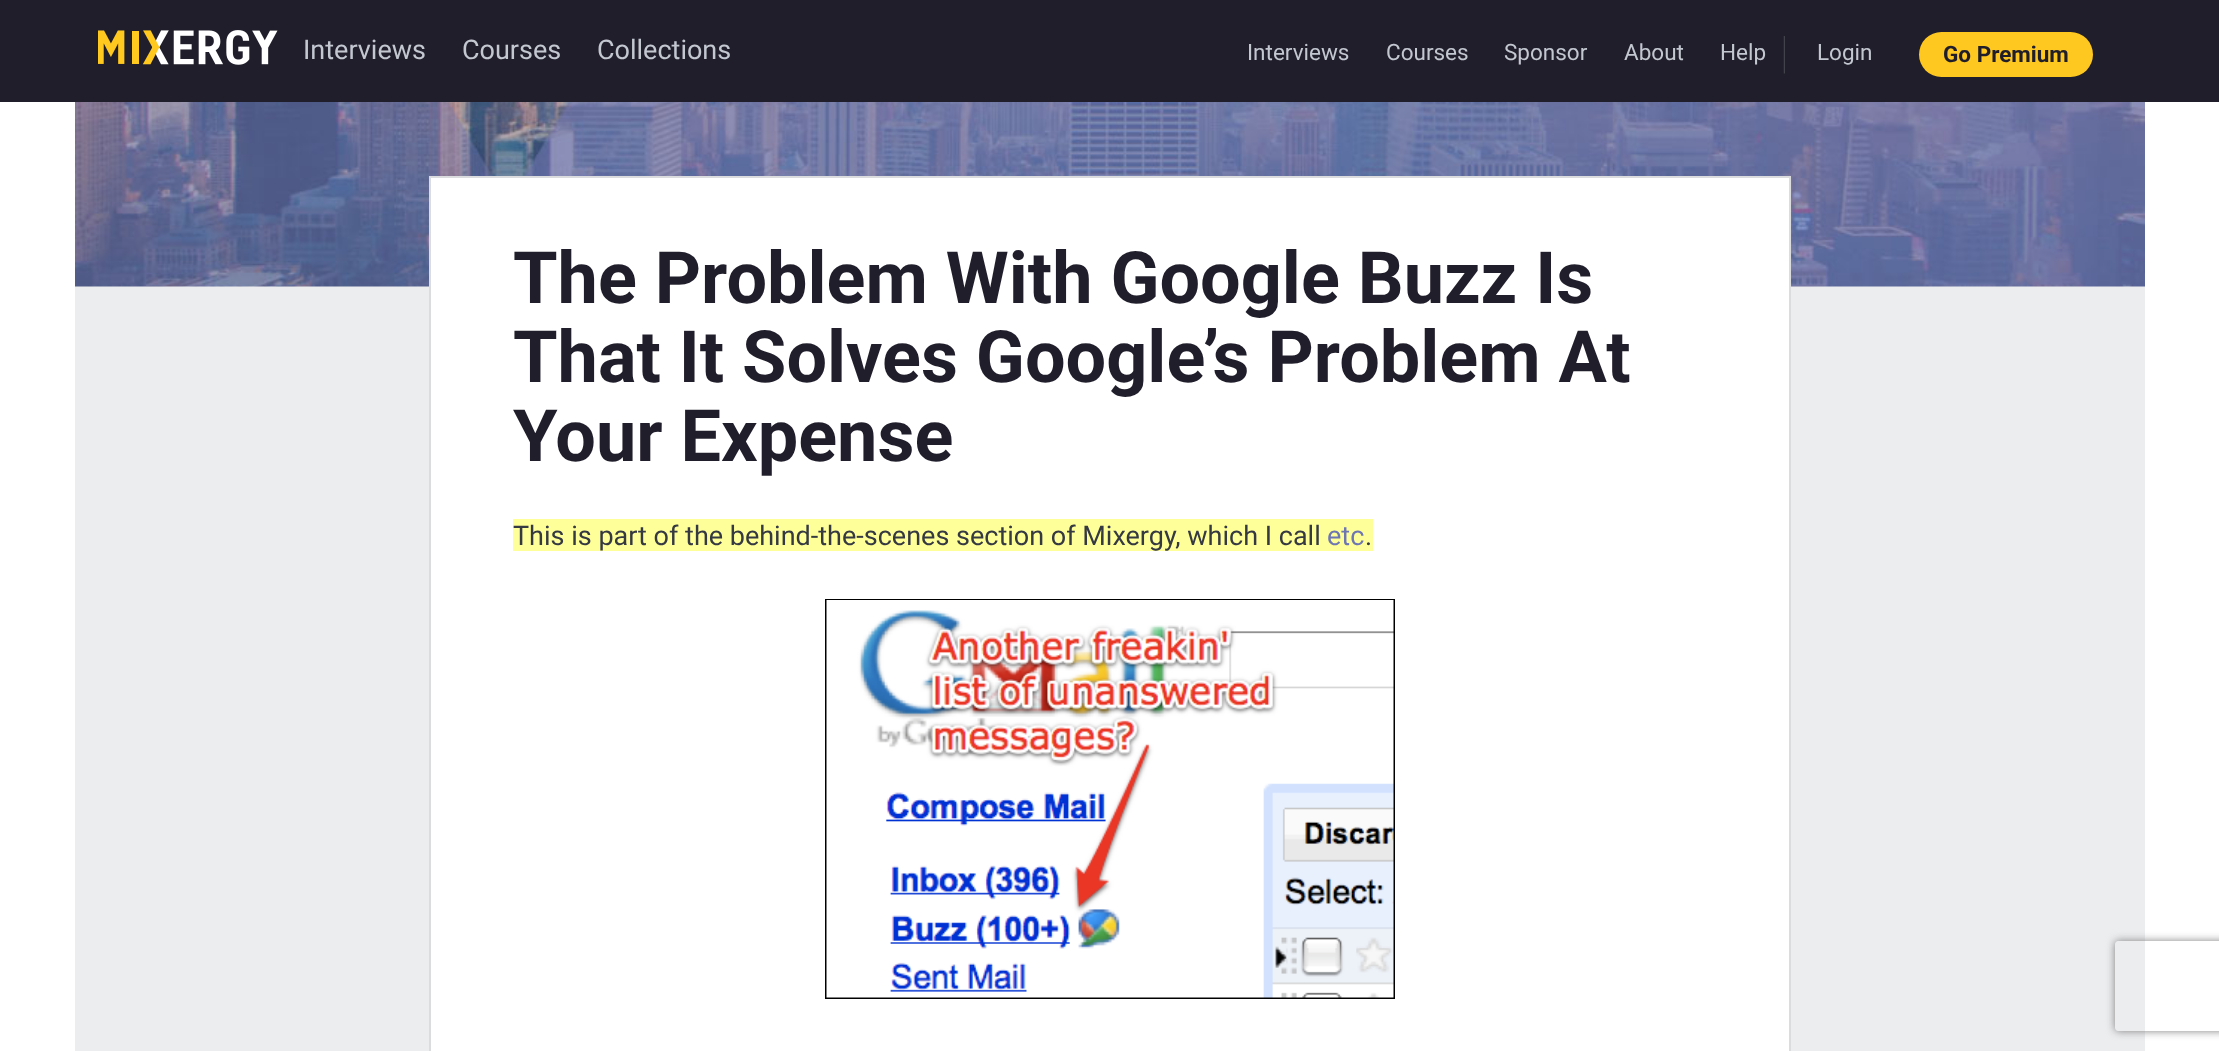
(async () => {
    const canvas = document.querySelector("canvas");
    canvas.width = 2219;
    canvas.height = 1051;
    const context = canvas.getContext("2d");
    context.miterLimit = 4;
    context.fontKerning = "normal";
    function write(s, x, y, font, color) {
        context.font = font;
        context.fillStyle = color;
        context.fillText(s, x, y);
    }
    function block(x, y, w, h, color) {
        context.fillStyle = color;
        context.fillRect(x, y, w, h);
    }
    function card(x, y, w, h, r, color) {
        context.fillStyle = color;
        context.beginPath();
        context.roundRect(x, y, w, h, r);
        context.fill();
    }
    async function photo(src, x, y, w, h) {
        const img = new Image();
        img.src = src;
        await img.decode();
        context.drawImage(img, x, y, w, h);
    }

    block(0, 0, 2219, 1051, "rgb(255, 255, 255)");
    block(0, 0, 2219, 102, "rgb(33, 30, 43)");
    await photo("media/1.png", 98, 30, 180, 35);
    write("Interviews", 303, 59, "27px Roboto", "rgb(194, 199, 208)");
    write("Courses", 462, 59, "27px Roboto", "rgb(194, 199, 208)");
    write("Collections", 597, 59, "27px Roboto", "rgb(194, 199, 208)");
    write("Interviews", 1247, 60, "22.5px Roboto", "rgb(194, 199, 208)");
    write("Courses", 1386, 60, "22.5px Roboto", "rgb(194, 199, 208)");
    write("Sponsor", 1504, 60, "22.5px Roboto", "rgb(194, 199, 208)");
    write("About", 1624, 60, "22.5px Roboto", "rgb(194, 199, 208)");
    write("Help", 1720, 60, "22.5px Roboto", "rgb(194, 199, 208)");
    await photo("media/2.png", 1783, 36, 2, 38);
    write("Login", 1817, 60, "22.5px Roboto", "rgb(194, 199, 208)");
    card(1919, 32, 174, 45, 22.5, "rgb(255, 200, 32)");
    write("Go Premium", 1943, 62, "bold 22.5px Roboto", "rgb(33, 30, 43)");
    block(75, 286, 2070, 1, "rgb(238, 238, 238)");
    await photo("media/3.png", 75, 102, 2070, 185);
    block(75, 287, 2070, 764, "rgb(236, 237, 239)");
    context.fillStyle = "rgb(255, 255, 255)";
    context.beginPath();
    context.rect(430, 177, 1360, 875);
    context.fill();
    context.strokeStyle = "rgb(219, 220, 222)";
    context.lineWidth = 2;
    context.stroke();
    write("The Problem With Google Buzz Is", 513, 303, "bold 72px Roboto", "rgb(33, 30, 43)");
    write("That It Solves Google’s Problem At", 513, 382, "bold 72px Roboto", "rgb(33, 30, 43)");
    write("Your Expense", 513, 461, "bold 72px Roboto", "rgb(33, 30, 43)");
    block(513, 519, 860, 32, "rgb(255, 255, 153)");
    write("This is part of the behind-the-scenes section of Mixergy, which I call", 513, 545, "27px Roboto", "rgb(53, 57, 65)");
    write("etc", 1327, 545, "27px Roboto", "rgb(111, 119, 179)");
    write(".", 1365, 545, "27px Roboto", "rgb(53, 57, 65)");
    context.strokeStyle = "rgb(0, 0, 0)";
    context.strokeRect(826, 600, 568, 398);
    await photo("media/4.png", 826, 600, 568, 398);
    context.save();
    context.beginPath();
    context.moveTo(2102, 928);
    context.lineTo(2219, 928);
    context.lineTo(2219, 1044);
    context.lineTo(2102, 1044);
    context.closePath();
    context.moveTo(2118, 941);
    context.lineTo(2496, 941);
    context.bezierCurveTo(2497.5, 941, 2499, 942.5, 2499, 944);
    context.lineTo(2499, 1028);
    context.bezierCurveTo(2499, 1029.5, 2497.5, 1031, 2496, 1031);
    context.lineTo(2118, 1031);
    context.bezierCurveTo(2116.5, 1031, 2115, 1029.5, 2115, 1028);
    context.lineTo(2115, 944);
    context.bezierCurveTo(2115, 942.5, 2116.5, 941, 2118, 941);
    context.closePath();
    context.clip("evenodd");
    context.fillStyle = "rgb(128, 128, 128)";
    context.filter = "blur(4px)";
    context.beginPath();
    context.roundRect(2115, 941, 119, 90, 3);
    context.fill();
    context.filter = "none";
    context.restore();
})();
